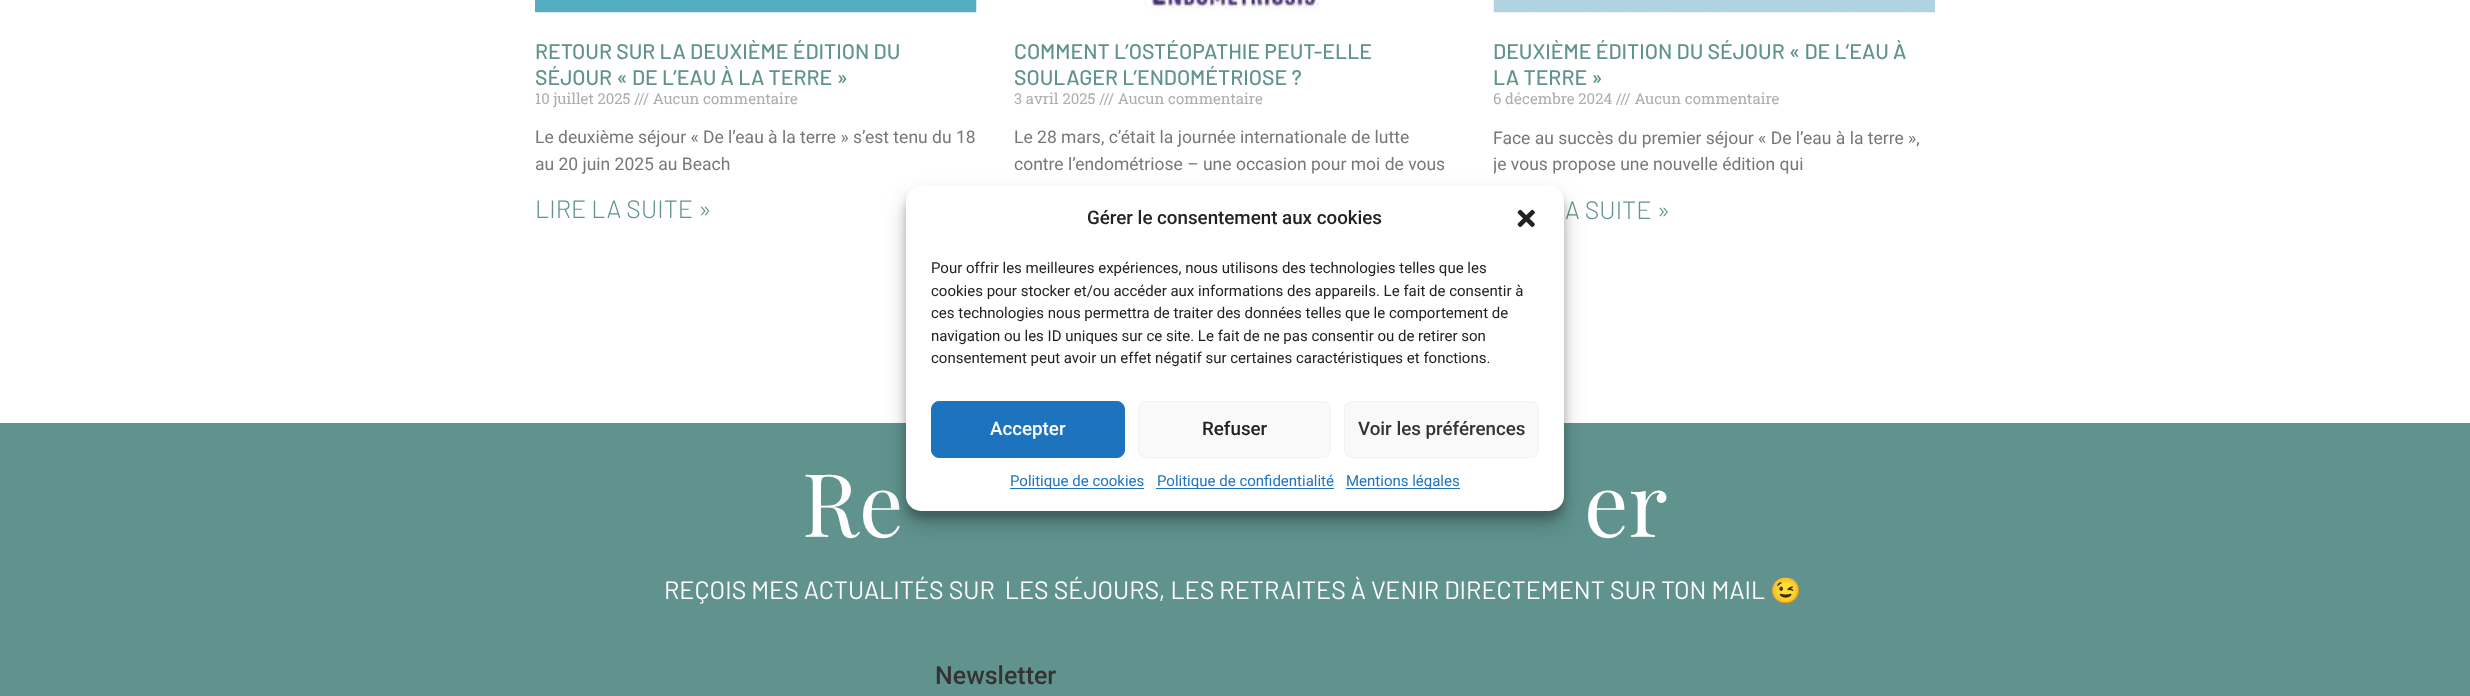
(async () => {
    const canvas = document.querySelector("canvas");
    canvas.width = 2470;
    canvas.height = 696;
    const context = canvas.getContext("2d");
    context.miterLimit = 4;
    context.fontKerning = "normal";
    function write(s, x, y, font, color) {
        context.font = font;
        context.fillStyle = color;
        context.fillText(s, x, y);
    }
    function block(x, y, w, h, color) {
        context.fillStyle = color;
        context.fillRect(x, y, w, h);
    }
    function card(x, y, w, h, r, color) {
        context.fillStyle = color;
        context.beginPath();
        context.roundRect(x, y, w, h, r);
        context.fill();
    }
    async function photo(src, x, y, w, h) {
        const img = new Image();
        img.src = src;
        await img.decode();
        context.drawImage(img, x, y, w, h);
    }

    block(0, 0, 2470, 696, "rgb(255, 255, 255)");
    await photo("media/1.png", 535, 0, 442, 13);
    write("RETOUR SUR LA DEUXIÈME ÉDITION DU", 535, 59, "500 21.25px Barlow", "rgb(97, 147, 142)");
    write("SÉJOUR « DE L’EAU À LA TERRE »", 535, 85, "500 21.25px Barlow", "rgb(97, 147, 142)");
    write("10 juillet 2025 /// Aucun commentaire", 535, 104, "15px Roboto Slab", "rgb(173, 173, 173)");
    write("Le deuxième séjour « De l’eau à la terre » s’est tenu du 18", 535, 143, "17.5px Roboto", "rgb(119, 119, 119)");
    write("au 20 juin 2025 au Beach", 535, 170, "17.5px Roboto", "rgb(119, 119, 119)");
    write("LIRE LA SUITE »", 535, 218, "300 25px Barlow", "rgb(97, 147, 142)");
    await photo("media/2.png", 1144, 0, 176, 12);
    write("COMMENT L’OSTÉOPATHIE PEUT-ELLE", 1014, 59, "500 21.25px Barlow", "rgb(97, 147, 142)");
    write("SOULAGER L’ENDOMÉTRIOSE ?", 1014, 85, "500 21.25px Barlow", "rgb(97, 147, 142)");
    write("3 avril 2025 /// Aucun commentaire", 1014, 104, "15px Roboto Slab", "rgb(173, 173, 173)");
    write("Le 28 mars, c’était la journée internationale de lutte", 1014, 143, "17.5px Roboto", "rgb(119, 119, 119)");
    write("contre l’endométriose – une occasion pour moi de vous", 1014, 170, "17.5px Roboto", "rgb(119, 119, 119)");
    await photo("media/3.png", 1493, 0, 442, 13);
    write("DEUXIÈME ÉDITION DU SÉJOUR « DE L’EAU À", 1493, 59, "500 21.25px Barlow", "rgb(97, 147, 142)");
    write("LA TERRE »", 1493, 85, "500 21.25px Barlow", "rgb(97, 147, 142)");
    write("6 décembre 2024 /// Aucun commentaire", 1493, 104, "15px Roboto Slab", "rgb(173, 173, 173)");
    write("Face au succès du premier séjour « De l’eau à la terre »,", 1493, 144, "17.5px Roboto", "rgb(119, 119, 119)");
    context.save();
    context.beginPath();
    context.rect(1494, 0, 441, 228);
    context.clip();
    write("je vous propose une nouvelle édition qui", 1493, 170, "17.5px Roboto", "rgb(119, 119, 119)");
    context.restore();
    write("A SUITE »", 1565, 219, "300 25px Barlow", "rgb(97, 147, 142)");
    block(0, 423, 2470, 273, "rgb(97, 147, 142)");
    write("Re", 802, 537, "88px Playfair Display", "rgb(255, 255, 255)");
    write("er", 1584, 537, "88px Playfair Display", "rgb(255, 255, 255)");
    write("REÇOIS MES ACTUALITÉS SUR  LES SÉJOURS, LES RETRAITES À VENIR DIRECTEMENT SUR TON MAIL", 664, 599, "25px Barlow", "rgb(255, 255, 255)");
    write("😉", 1770, 599, "25px Noto Color Emoji", "rgb(255, 255, 255)");
    write("Newsletter", 935, 684, "500 25px Roboto", "rgb(51, 51, 51)");
    context.fillStyle = "rgba(0, 0, 0, 0.23)";
    context.filter = "blur(4px)";
    context.beginPath();
    context.roundRect(906, 194, 658, 325, 15);
    context.fill();
    context.filter = "none";
    context.fillStyle = "rgba(0, 0, 0, 0.19)";
    context.filter = "blur(12.5px)";
    context.beginPath();
    context.roundRect(906, 199, 658, 325, 15);
    context.fill();
    context.filter = "none";
    card(906, 186, 658, 325, 15, "rgb(255, 255, 255)");
    write("Gérer le consentement aux cookies", 1087, 224, "500 18.75px Roboto", "rgb(34, 34, 34)");
    await photo("media/4.png", 1517, 209, 18, 18);
    write("Pour offrir les meilleures expériences, nous utilisons des technologies telles que les", 931, 273, "15px Roboto", "rgb(34, 34, 34)");
    write("cookies pour stocker et/ou accéder aux informations des appareils. Le fait de consentir à", 931, 296, "15px Roboto", "rgb(34, 34, 34)");
    write("ces technologies nous permettra de traiter des données telles que le comportement de", 931, 318, "15px Roboto", "rgb(34, 34, 34)");
    write("navigation ou les ID uniques sur ce site. Le fait de ne pas consentir ou de retirer son", 931, 341, "15px Roboto", "rgb(34, 34, 34)");
    write("consentement peut avoir un effet négatif sur certaines caractéristiques et fonctions.", 931, 363, "15px Roboto", "rgb(34, 34, 34)");
    context.fillStyle = "rgb(30, 115, 190)";
    context.beginPath();
    context.roundRect(931.5, 401.5, 193, 56, 7.5);
    context.fill();
    context.strokeStyle = "rgb(30, 115, 190)";
    context.stroke();
    write("Accepter", 990, 435, "500 18.75px Roboto", "rgb(255, 255, 255)");
    context.fillStyle = "rgb(249, 249, 249)";
    context.beginPath();
    context.roundRect(1138.5, 401.5, 192, 56, 7.5);
    context.fill();
    context.strokeStyle = "rgb(242, 242, 242)";
    context.stroke();
    write("Refuser", 1202, 435, "500 18.75px Roboto", "rgb(34, 34, 34)");
    context.fillStyle = "rgb(249, 249, 249)";
    context.beginPath();
    context.roundRect(1344.5, 401.5, 194, 56, 7.5);
    context.fill();
    context.stroke();
    write("Voir les préférences", 1358, 435, "500 18.75px Roboto", "rgb(51, 51, 51)");
    block(1010, 488, 134, 1, "rgb(30, 115, 190)");
    write("Politique de cookies", 1010, 486, "15px Roboto", "rgb(30, 115, 190)");
    block(1156, 488, 178, 1, "rgb(30, 115, 190)");
    write("Politique de confidentialité", 1157, 486, "15px Roboto", "rgb(30, 115, 190)");
    block(1346, 488, 114, 1, "rgb(30, 115, 190)");
    write("Mentions légales", 1346, 486, "15px Roboto", "rgb(30, 115, 190)");
})();
